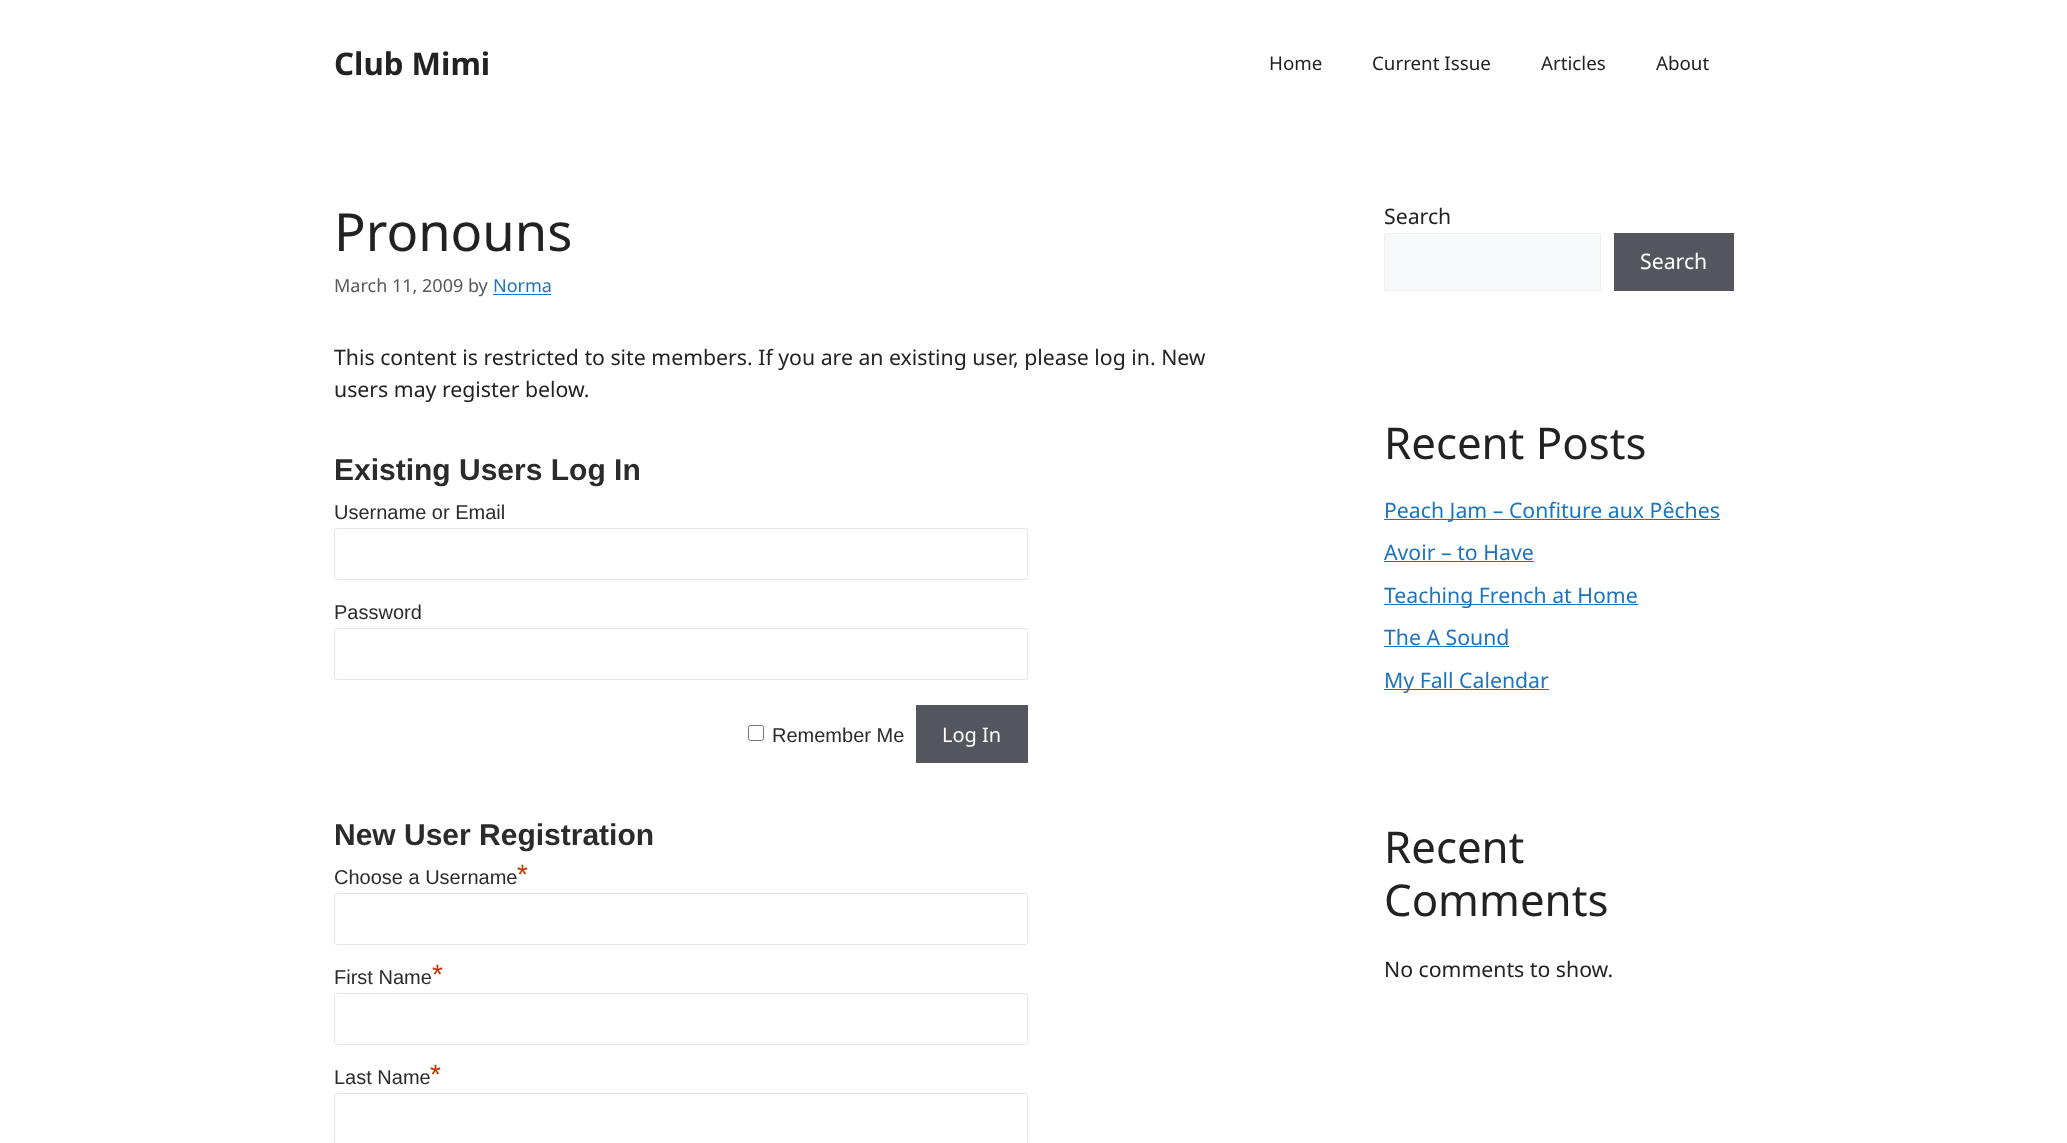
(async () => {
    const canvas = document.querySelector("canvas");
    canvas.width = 2067;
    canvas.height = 1143;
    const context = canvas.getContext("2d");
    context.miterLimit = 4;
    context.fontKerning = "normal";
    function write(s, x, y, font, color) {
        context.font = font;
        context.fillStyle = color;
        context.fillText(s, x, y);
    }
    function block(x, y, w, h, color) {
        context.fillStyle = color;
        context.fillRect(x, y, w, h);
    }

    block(0, 0, 2067, 1143, "rgb(255, 255, 255)");
    write("Club Mimi", 334, 75, "bold 31.25px Noto Sans", "rgb(34, 34, 34)");
    write("Home", 1269, 70, "18.75px Noto Sans", "rgb(34, 34, 34)");
    write("Current Issue", 1372, 70, "18.75px Noto Sans", "rgb(34, 34, 34)");
    write("Articles", 1541, 70, "18.75px Noto Sans", "rgb(34, 34, 34)");
    write("About", 1656, 70, "18.75px Noto Sans", "rgb(34, 34, 34)");
    write("Pronouns", 334, 251, "52.5px Noto Sans", "rgb(34, 34, 34)");
    write("March 11, 2009 by", 334, 292, "18px Noto Sans", "rgb(87, 87, 96)");
    write("Norma", 493, 292, "18px Noto Sans", "rgb(30, 115, 190)");
    block(493, 294, 58, 1, "rgb(30, 115, 190)");
    write("This content is restricted to site members. If you are an existing user, please log in. New", 334, 365, "21.25px Noto Sans", "rgb(34, 34, 34)");
    write("users may register below.", 334, 397, "21.25px Noto Sans", "rgb(34, 34, 34)");
    write("Existing Users Log In", 334, 480, "bold 30px Liberation Sans", "rgb(43, 43, 43)");
    write("Username or Email", 334, 519, "20px Liberation Sans", "rgb(43, 43, 43)");
    context.beginPath();
    context.roundRect(334.5, 528.5, 693, 51, 2);
    context.strokeStyle = "rgb(230, 230, 230)";
    context.stroke();
    write("Password", 334, 619, "20px Liberation Sans", "rgb(43, 43, 43)");
    context.beginPath();
    context.roundRect(334.5, 628.5, 693, 51, 2);
    context.stroke();
    context.beginPath();
    context.roundRect(748.5, 725.5, 15, 15, 2);
    context.strokeStyle = "rgb(118, 118, 118)";
    context.stroke();
    write("Remember Me", 772, 742, "20px Liberation Sans", "rgb(43, 43, 43)");
    block(916, 705, 112, 58, "rgb(85, 85, 94)");
    write("Log In", 942, 742, "20px Noto Sans", "rgb(255, 255, 255)");
    write("New User Registration", 334, 845, "bold 30px Liberation Sans", "rgb(43, 43, 43)");
    write("Choose a Username", 334, 884, "20px Liberation Sans", "rgb(43, 43, 43)");
    write("*", 517, 884, "28px Liberation Sans", "rgb(189, 53, 0)");
    context.beginPath();
    context.roundRect(334.5, 893.5, 693, 51, 2);
    context.strokeStyle = "rgb(230, 230, 230)";
    context.stroke();
    write("First Name", 334, 984, "20px Liberation Sans", "rgb(43, 43, 43)");
    write("*", 432, 984, "28px Liberation Sans", "rgb(189, 53, 0)");
    context.beginPath();
    context.roundRect(334.5, 993.5, 693, 51, 2);
    context.stroke();
    write("Last Name", 334, 1084, "20px Liberation Sans", "rgb(43, 43, 43)");
    write("*", 430, 1084, "28px Liberation Sans", "rgb(189, 53, 0)");
    context.beginPath();
    context.roundRect(334.5, 1093.5, 693, 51, 2);
    context.stroke();
    write("Search", 1384, 224, "21.25px Noto Sans", "rgb(34, 34, 34)");
    context.fillStyle = "rgb(247, 248, 249)";
    context.beginPath();
    context.rect(1384.5, 233.5, 216, 57);
    context.fill();
    context.strokeStyle = "rgb(240, 240, 240)";
    context.stroke();
    block(1614, 233, 120, 58, "rgb(85, 85, 94)");
    write("Search", 1640, 269, "21.25px Noto Sans", "rgb(255, 255, 255)");
    write("Recent Posts", 1384, 459, "43.75px Noto Sans", "rgb(34, 34, 34)");
    block(1384, 519, 336, 1, "rgb(30, 115, 190)");
    write("Peach Jam – Confiture aux Pêches", 1384, 518, "21.25px Noto Sans", "rgb(30, 115, 190)");
    write("Avoir – to Have", 1384, 560, "21.25px Noto Sans", "rgb(30, 115, 190)");
    block(1384, 561, 150, 1, "rgb(30, 115, 190)");
    block(1384, 604, 254, 1, "rgb(30, 115, 190)");
    write("Teaching French at Home", 1384, 603, "21.25px Noto Sans", "rgb(30, 115, 190)");
    write("The A Sound", 1384, 645, "21.25px Noto Sans", "rgb(30, 115, 190)");
    block(1384, 646, 125, 1, "rgb(30, 115, 190)");
    block(1384, 689, 165, 1, "rgb(30, 115, 190)");
    write("My Fall Calendar", 1384, 688, "21.25px Noto Sans", "rgb(30, 115, 190)");
    write("Recent", 1384, 863, "43.75px Noto Sans", "rgb(34, 34, 34)");
    write("Comments", 1384, 916, "43.75px Noto Sans", "rgb(34, 34, 34)");
    write("No comments to show.", 1384, 977, "21.25px Noto Sans", "rgb(34, 34, 34)");
})();
